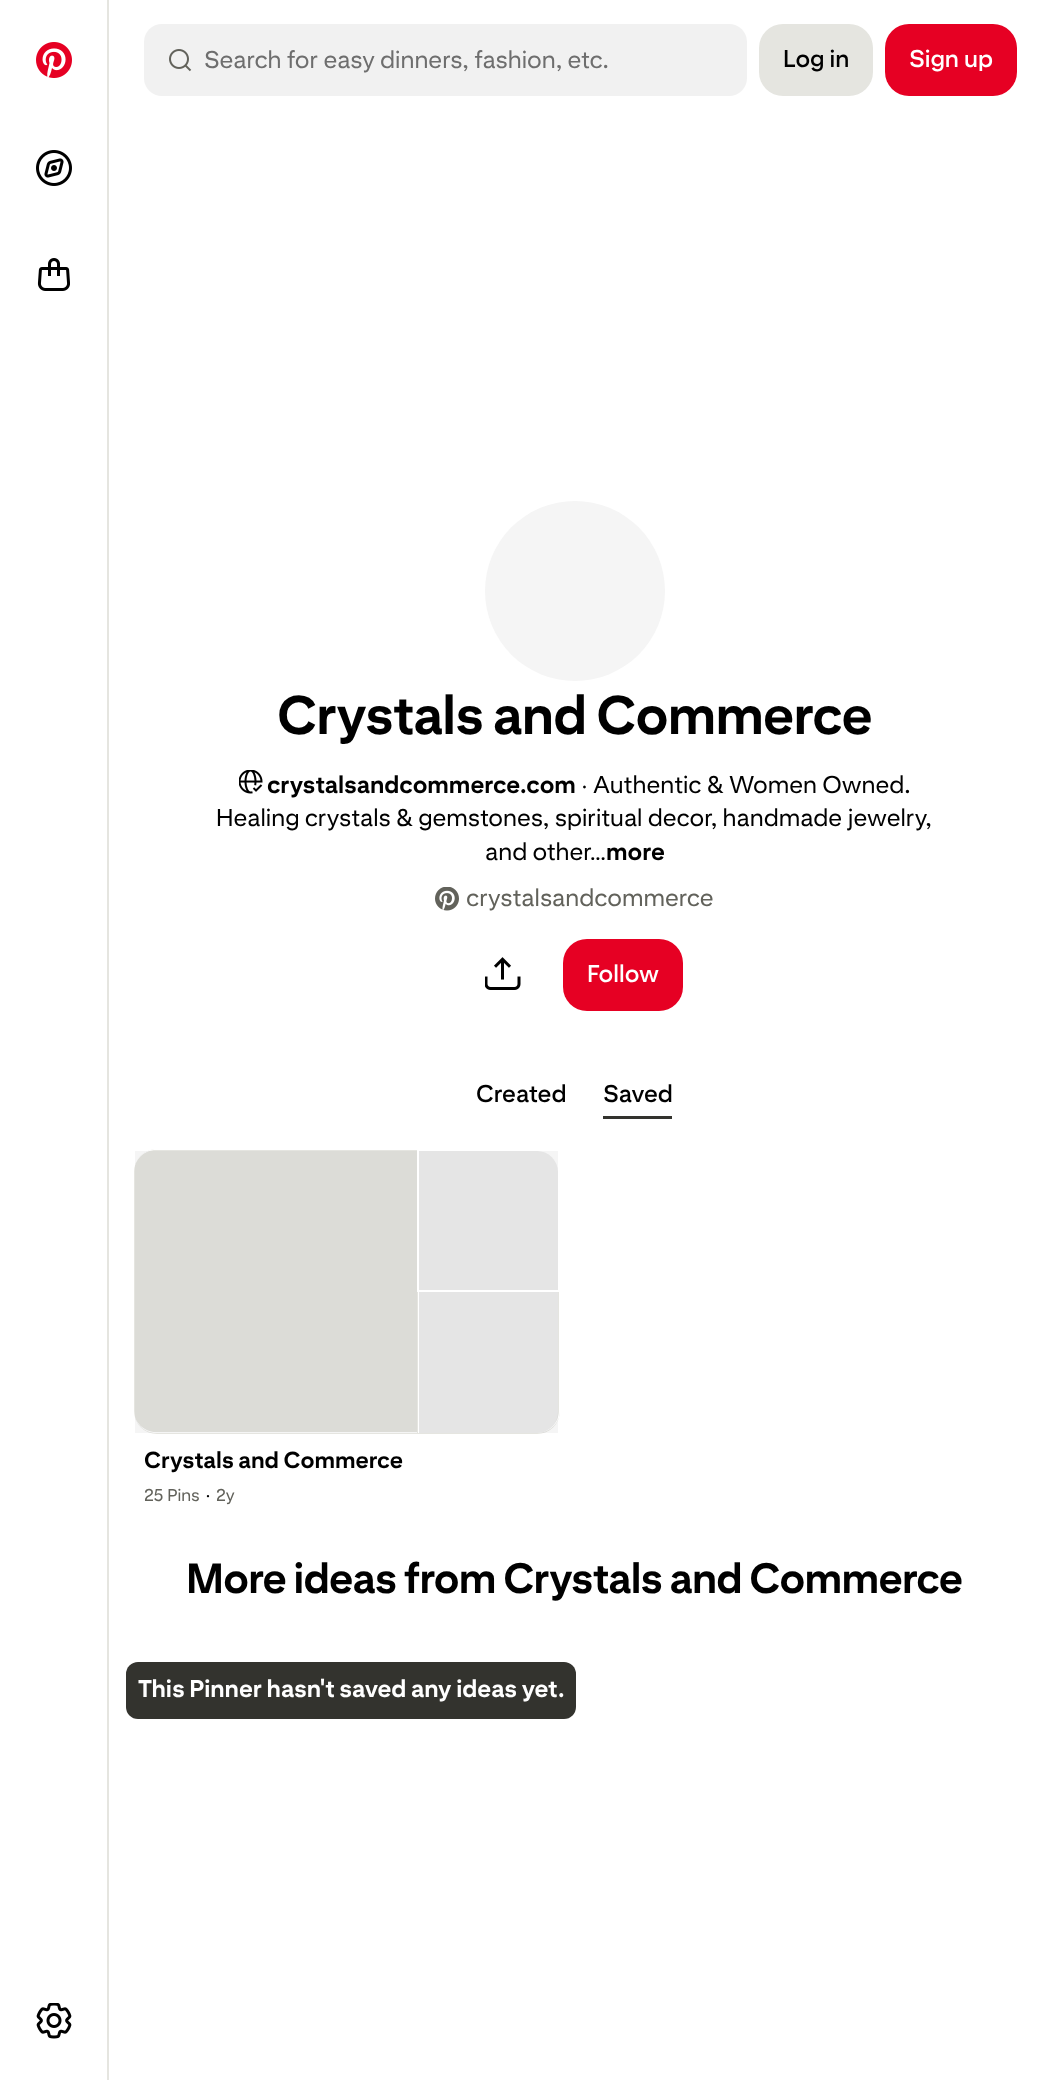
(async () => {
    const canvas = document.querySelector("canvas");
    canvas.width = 1040;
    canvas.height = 2080;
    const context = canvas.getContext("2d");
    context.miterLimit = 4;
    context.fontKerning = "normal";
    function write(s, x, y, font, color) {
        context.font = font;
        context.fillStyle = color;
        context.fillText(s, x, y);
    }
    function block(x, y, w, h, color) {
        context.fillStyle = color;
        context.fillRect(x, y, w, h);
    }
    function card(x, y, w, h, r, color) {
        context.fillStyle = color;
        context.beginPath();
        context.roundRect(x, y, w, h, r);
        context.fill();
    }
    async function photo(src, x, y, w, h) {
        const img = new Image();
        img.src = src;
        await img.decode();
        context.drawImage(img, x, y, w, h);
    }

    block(0, 0, 1040, 2080, "rgb(255, 255, 255)");
    block(107, 0, 2, 2080, "rgb(229, 229, 224)");
    await photo("media/1.png", 36, 42, 36, 36);
    await photo("media/2.png", 36, 150, 36, 36);
    await photo("media/3.png", 37, 258, 33, 33);
    await photo("media/4.png", 36, 2003, 36, 36);
    card(144, 24, 603, 72, 18, "rgb(241, 241, 241)");
    await photo("media/5.png", 169, 49, 23, 23);
    write("Search for easy dinners, fashion, etc.", 204, 68, "24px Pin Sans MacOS", "rgb(110, 110, 110)");
    card(759, 24, 114, 72, 24, "rgb(229, 229, 224)");
    write("Log in", 783, 67, "500 24px Pin Sans MacOS", "rgb(0, 0, 0)");
    card(885, 24, 132, 72, 24, "rgb(230, 0, 35)");
    write("Sign up", 909, 67, "500 24px Pin Sans MacOS", "rgb(255, 255, 255)");
    context.fillStyle = "rgb(245, 245, 245)";
    context.beginPath();
    context.arc(575, 591, 90, 0, Math.PI * 2);
    context.fill();
    context.letterSpacing = "-0.75px";
    write("Crystals and Commerce", 277, 734, "bold 54px Pin Sans MacOS", "rgb(0, 0, 0)");
    context.letterSpacing = "0px";
    write("Authentic & Women Owned.", 593, 793, "24px Pin Sans MacOS", "rgb(0, 0, 0)");
    write("Healing crystals & gemstones, spiritual decor, handmade jewelry,", 216, 826, "24px Pin Sans MacOS", "rgb(0, 0, 0)");
    write("and other…", 485, 860, "24px Pin Sans MacOS", "rgb(0, 0, 0)");
    write("more", 606, 860, "bold 24px Pin Sans MacOS", "rgb(0, 0, 0)");
    await photo("media/6.png", 239, 770, 24, 24);
    write("crystalsandcommerce.com", 267, 793, "bold 24px Pin Sans MacOS", "rgb(0, 0, 0)");
    write("·", 582, 793, "21px Pin Sans MacOS", "rgb(0, 0, 0)");
    await photo("media/7.png", 435, 887, 24, 24);
    write("crystalsandcommerce", 466, 906, "24px Pin Sans MacOS", "rgb(98, 98, 91)");
    await photo("media/8.png", 485, 957, 36, 33);
    card(563, 939, 120, 72, 24, "rgb(230, 0, 35)");
    write("Follow", 587, 982, "500 24px Pin Sans MacOS", "rgb(255, 255, 255)");
    write("Created", 476, 1102, "500 24px Pin Sans MacOS", "rgb(0, 0, 0)");
    write("Saved", 603, 1102, "500 24px Pin Sans MacOS", "rgb(0, 0, 0)");
    block(603, 1116, 69, 3, "rgb(51, 51, 46)");
    context.fillStyle = "rgb(229, 229, 224)";
    context.beginPath();
    context.roundRect(134, 1149, 283, 285, [23, 0, 0, 23]);
    context.fill();
    context.fillStyle = "rgb(255, 255, 255)";
    context.beginPath();
    context.moveTo(156, 1150);
    context.bezierCurveTo(144, 1150, 134, 1160, 134, 1172);
    context.bezierCurveTo(134, 1159, 144, 1149, 157, 1149);
    context.lineTo(418, 1149);
    context.lineTo(418, 1150);
    context.closePath();
    context.moveTo(134, 1411);
    context.bezierCurveTo(134, 1423, 144, 1433, 156, 1433);
    context.lineTo(418, 1433);
    context.lineTo(418, 1432);
    context.lineTo(156, 1432);
    context.bezierCurveTo(144, 1432, 134, 1422, 134, 1411);
    context.closePath();
    context.fill("evenodd");
    block(135, 1151, 282, 282, "rgba(0, 0, 0, 0.04)");
    context.fillStyle = "rgb(239, 239, 239)";
    context.beginPath();
    context.roundRect(419, 1151, 139, 139, [0, 21, 0, 0]);
    context.fill();
    block(419, 1151, 139, 139, "rgba(0, 0, 0, 0.04)");
    context.fillStyle = "rgb(229, 229, 224)";
    context.beginPath();
    context.roundRect(417, 1292, 143, 142, [0, 0, 23, 0]);
    context.fill();
    context.fillStyle = "rgb(255, 255, 255)";
    context.beginPath();
    context.moveTo(418, 1291);
    context.lineTo(560, 1291);
    context.lineTo(560, 1411);
    context.bezierCurveTo(560, 1423, 550, 1433, 537, 1433);
    context.lineTo(418, 1433);
    context.closePath();
    context.moveTo(419, 1291);
    context.lineTo(559, 1291);
    context.lineTo(559, 1411);
    context.bezierCurveTo(559, 1422, 549, 1432, 537, 1432);
    context.lineTo(419, 1432);
    context.closePath();
    context.fill("evenodd");
    context.fillStyle = "rgb(239, 239, 239)";
    context.beginPath();
    context.roundRect(419, 1292, 139, 141, [0, 0, 21, 0]);
    context.fill();
    block(419, 1292, 139, 141, "rgba(0, 0, 0, 0.04)");
    write("Crystals and Commerce", 144, 1468, "bold 22.9px Pin Sans MacOS", "rgb(0, 0, 0)");
    write("25 Pins", 144, 1501, "17px Pin Sans MacOS", "rgb(98, 98, 91)");
    write("·", 206, 1501, "17px Pin Sans MacOS", "rgb(0, 0, 0)");
    write("2y", 216, 1501, "17px Pin Sans MacOS", "rgb(98, 98, 91)");
    context.letterSpacing = "-0.75px";
    write("More ideas from Crystals and Commerce", 186, 1593, "bold 42px Pin Sans MacOS", "rgb(0, 0, 0)");
    card(126, 1662, 450, 57, 12, "rgb(51, 51, 46)");
    context.letterSpacing = "0px";
    write("This Pinner hasn't saved any ideas yet.", 138, 1697, "bold 24px Pin Sans MacOS", "rgb(255, 255, 255)");
})();
